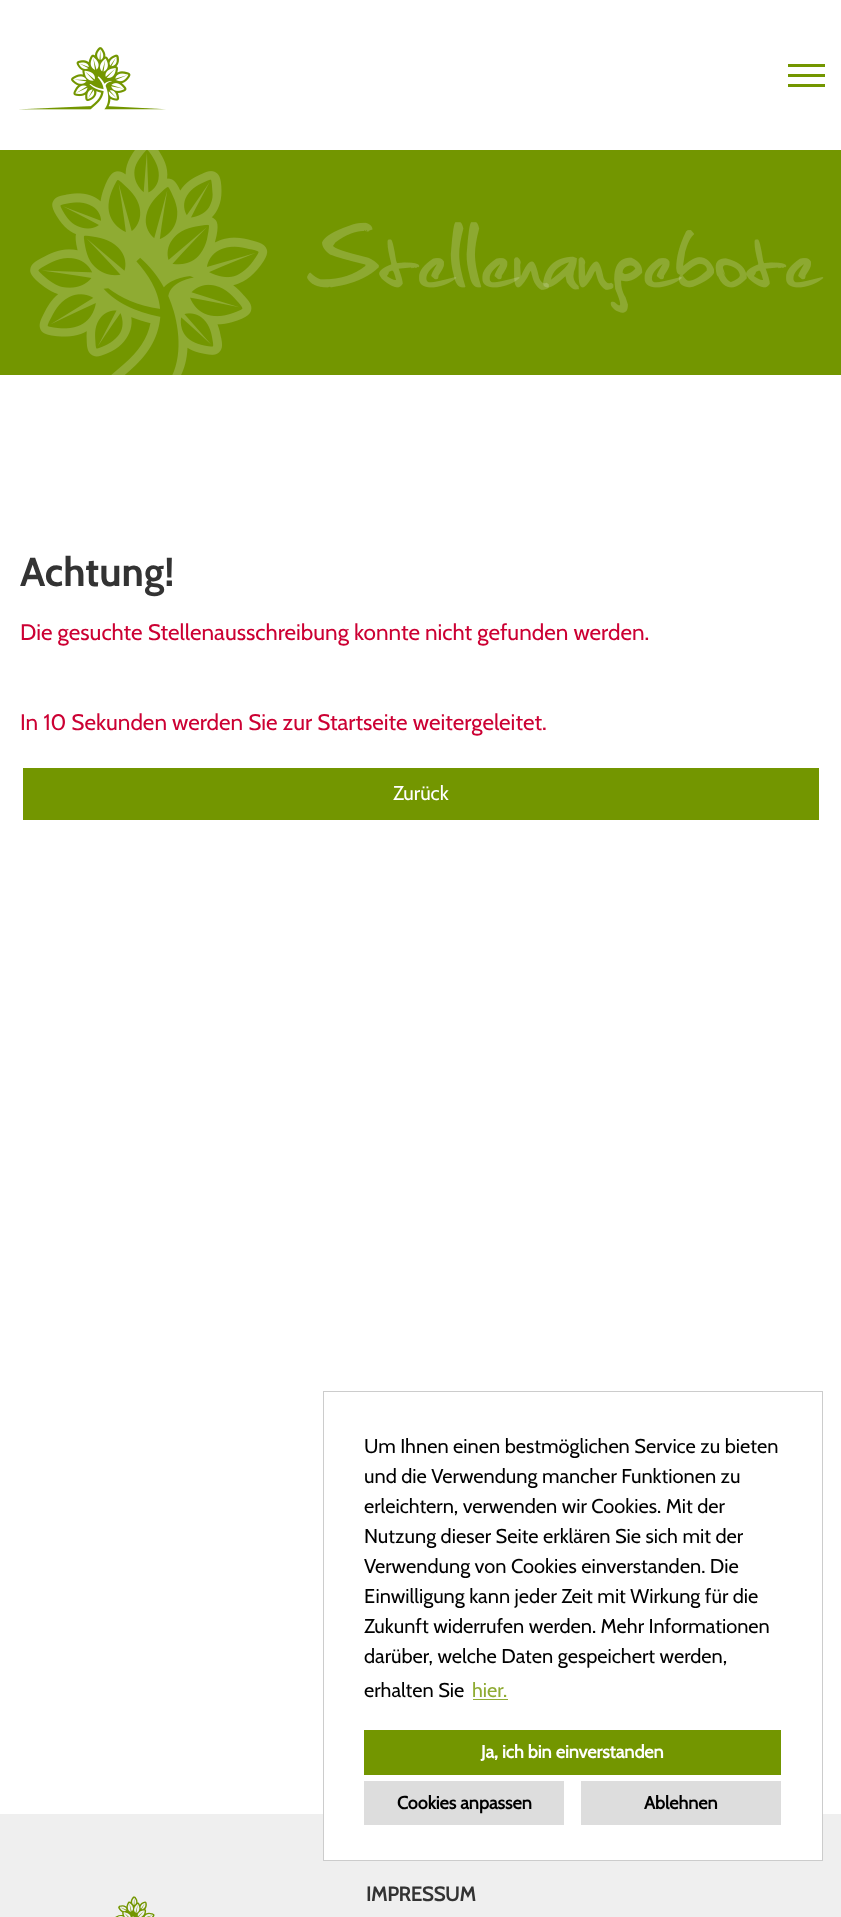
(async () => {
    const canvas = document.querySelector("canvas");
    canvas.width = 841;
    canvas.height = 1917;
    const context = canvas.getContext("2d");
    context.miterLimit = 4;
    context.fontKerning = "normal";
    function write(s, x, y, font, color) {
        context.font = font;
        context.fillStyle = color;
        context.fillText(s, x, y);
    }
    function block(x, y, w, h, color) {
        context.fillStyle = color;
        context.fillRect(x, y, w, h);
    }
    async function photo(src, x, y, w, h) {
        const img = new Image();
        img.src = src;
        await img.decode();
        context.drawImage(img, x, y, w, h);
    }

    block(0, 0, 841, 1917, "rgb(255, 255, 255)");
    await photo("media/1.png", 19, 47, 147, 63);
    block(788, 64, 37, 3, "rgb(115, 150, 0)");
    block(788, 74, 37, 3, "rgb(115, 150, 0)");
    block(788, 84, 37, 3, "rgb(115, 150, 0)");
    block(0, 150, 841, 225, "rgb(115, 150, 0)");
    await photo("media/2.png", 30, 150, 238, 225);
    await photo("media/3.png", 307, 222, 517, 91);
    write("Achtung!", 20, 586, "bold 40.5px Cabin", "rgb(51, 51, 51)");
    write("Die gesuchte Stellenausschreibung konnte nicht gefunden werden.", 20, 640, "22.5px Cabin", "rgb(204, 0, 51)");
    write("In 10 Sekunden werden Sie zur Startseite weitergeleitet.", 20, 730, "22.5px Cabin", "rgb(204, 0, 51)");
    block(23, 768, 796, 52, "rgb(115, 150, 0)");
    write("Zurück", 393, 800, "20px Cabin", "rgb(255, 255, 255)");
    block(0, 1814, 841, 103, "rgb(239, 239, 239)");
    write("IMPRESSUM", 366, 1901, "bold 20px 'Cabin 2'", "rgb(51, 51, 51)");
    await photo("media/4.png", 115, 1896, 40, 21);
    block(324, 1814, 498, 46, "rgb(255, 255, 255)");
    context.strokeStyle = "rgb(204, 204, 204)";
    context.strokeRect(323.5, 1391.5, 499, 469);
    write("Um Ihnen einen bestmöglichen Service zu bieten", 364, 1453, "20px Cabin", "rgb(0, 0, 0)");
    write("und die Verwendung mancher Funktionen zu", 364, 1483, "20px Cabin", "rgb(0, 0, 0)");
    write("erleichtern, verwenden wir Cookies. Mit der", 364, 1513, "20px Cabin", "rgb(0, 0, 0)");
    write("Nutzung dieser Seite erklären Sie sich mit der", 364, 1543, "20px Cabin", "rgb(0, 0, 0)");
    write("Verwendung von Cookies einverstanden. Die", 364, 1573, "20px Cabin", "rgb(0, 0, 0)");
    write("Einwilligung kann jeder Zeit mit Wirkung für die", 364, 1603, "20px Cabin", "rgb(0, 0, 0)");
    write("Zukunft widerrufen werden. Mehr Informationen", 364, 1633, "20px Cabin", "rgb(0, 0, 0)");
    write("darüber, welche Daten gespeichert werden,", 364, 1663, "20px Cabin", "rgb(0, 0, 0)");
    write("erhalten Sie", 364, 1697, "20px Cabin", "rgb(0, 0, 0)");
    write("hier.", 472, 1697, "20px Cabin", "rgb(143, 171, 51)");
    block(473, 1699, 35, 1, "rgb(143, 171, 51)");
    block(364, 1730, 417, 45, "rgb(115, 150, 0)");
    write("Ja, ich bin einverstanden", 481, 1758, "bold 18px 'Cabin 2'", "rgb(255, 255, 255)");
    block(364, 1781, 200, 44, "rgb(221, 221, 221)");
    write("Cookies anpassen", 397, 1809, "bold 18px 'Cabin 2'", "rgb(0, 0, 0)");
    block(581, 1781, 200, 44, "rgb(221, 221, 221)");
    write("Ablehnen", 644, 1809, "bold 18px 'Cabin 2'", "rgb(0, 0, 0)");
})();
